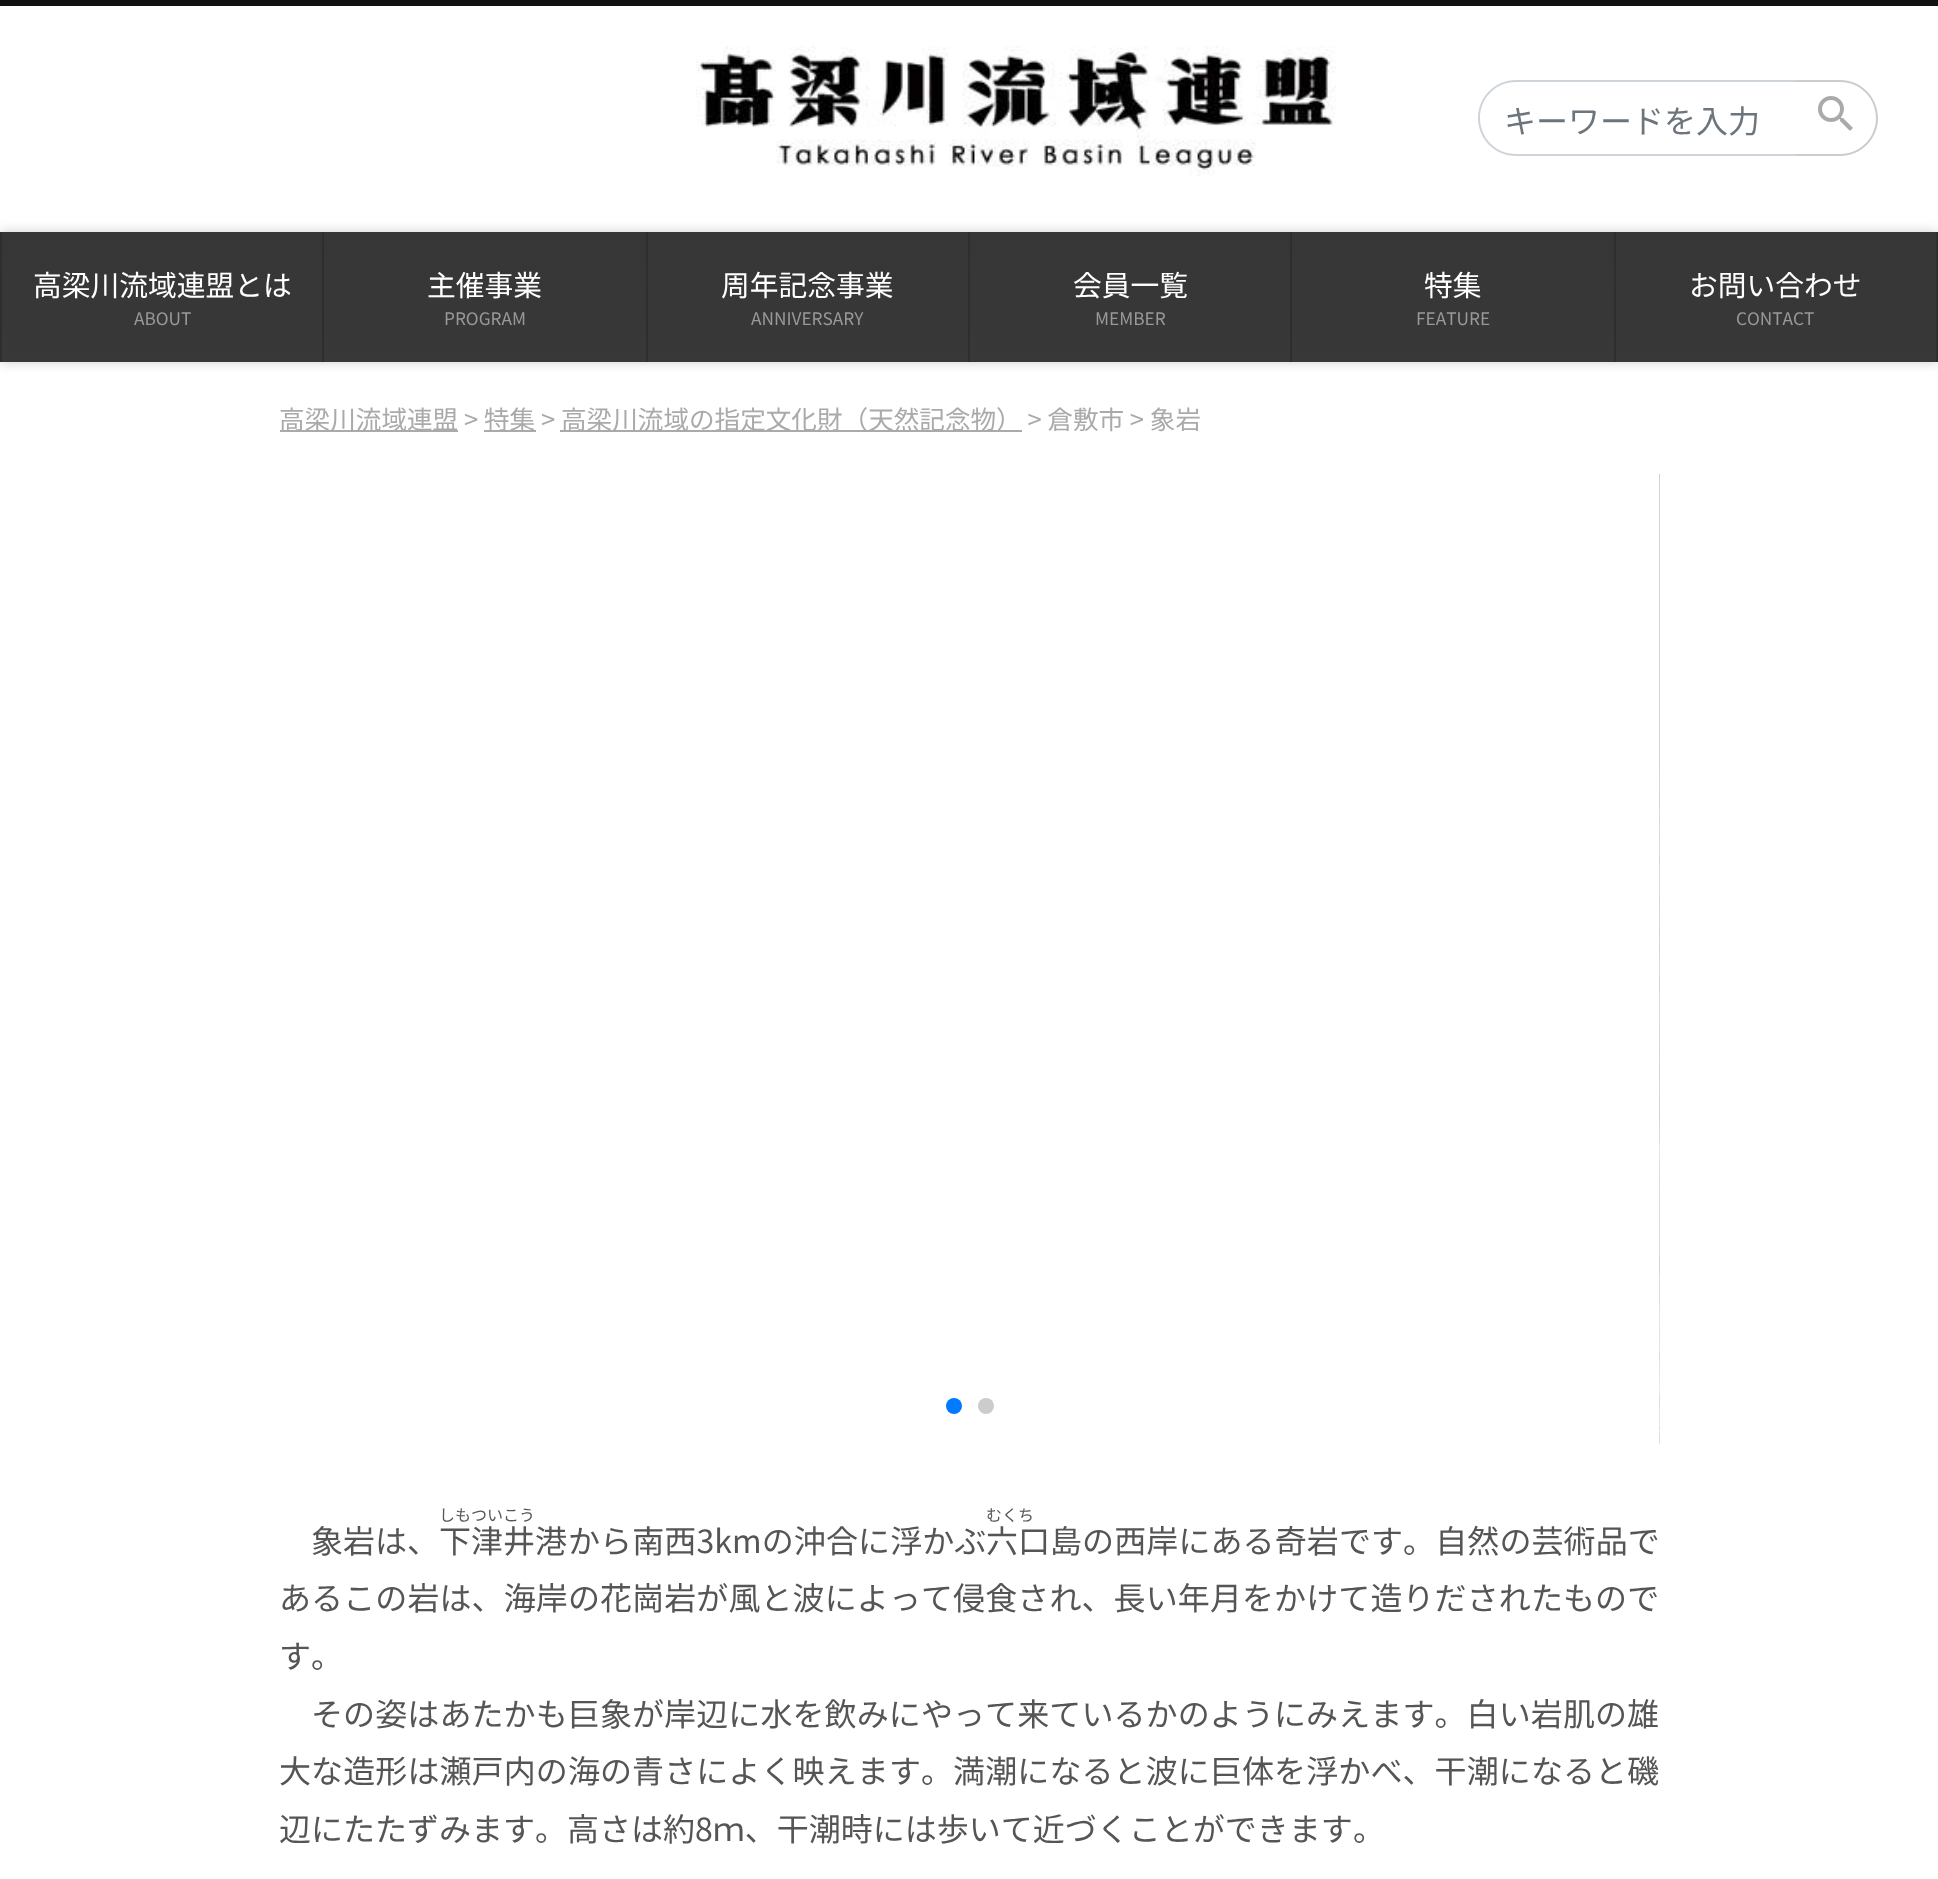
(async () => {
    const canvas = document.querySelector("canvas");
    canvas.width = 1938;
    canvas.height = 1879;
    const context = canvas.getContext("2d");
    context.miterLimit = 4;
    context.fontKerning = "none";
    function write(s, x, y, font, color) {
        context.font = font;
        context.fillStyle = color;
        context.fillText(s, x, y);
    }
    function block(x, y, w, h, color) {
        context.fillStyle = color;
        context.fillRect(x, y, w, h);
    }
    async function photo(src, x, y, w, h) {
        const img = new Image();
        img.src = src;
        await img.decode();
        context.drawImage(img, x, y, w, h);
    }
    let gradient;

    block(0, 0, 1938, 1879, "rgb(255, 255, 255)");
    block(0, 0, 1938, 6, "rgb(17, 17, 17)");
    await photo("media/1.png", 696, 46, 640, 130);
    context.fillStyle = "rgb(206, 212, 218)";
    context.beginPath();
    context.moveTo(1516, 80);
    context.lineTo(1796, 80);
    context.lineTo(1796, 156);
    context.lineTo(1516, 156);
    context.bezierCurveTo(1495, 156, 1478, 139, 1478, 118);
    context.bezierCurveTo(1478, 97, 1495, 80, 1516, 80);
    context.closePath();
    context.moveTo(1516, 82);
    context.lineTo(1796, 82);
    context.lineTo(1796, 154);
    context.lineTo(1516, 154);
    context.bezierCurveTo(1496, 154, 1480, 138, 1480, 118);
    context.bezierCurveTo(1480, 98, 1496, 82, 1516, 82);
    context.closePath();
    context.fill("evenodd");
    write("キーワードを入力", 1504, 133, "100 32px Noto Sans JP", "rgb(108, 117, 125)");
    context.fillStyle = "rgb(204, 204, 204)";
    context.beginPath();
    context.moveTo(1796, 80);
    context.lineTo(1840, 80);
    context.bezierCurveTo(1861, 80, 1878, 97, 1878, 118);
    context.bezierCurveTo(1878, 139, 1861, 156, 1840, 156);
    context.lineTo(1796, 156);
    context.closePath();
    context.moveTo(1796, 82);
    context.lineTo(1840, 82);
    context.bezierCurveTo(1860, 82, 1876, 98, 1876, 118);
    context.bezierCurveTo(1876, 138, 1860, 154, 1840, 154);
    context.lineTo(1796, 154);
    context.closePath();
    context.fill("evenodd");
    await photo("media/2.png", 1818, 96, 35, 35);
    context.fillStyle = "rgba(0, 0, 0, 0.2)";
    context.filter = "blur(6px)";
    context.beginPath();
    context.rect(0, 232, 1938, 130);
    context.fill();
    context.filter = "none";
    gradient = context.createLinearGradient(969, 232, 969, 362);
    gradient.addColorStop(0, "rgb(54, 54, 54)");
    gradient.addColorStop(1, "rgb(56, 56, 56)");
    context.fillStyle = gradient;
    context.fillRect(2, 232, 1934, 130);
    block(1936, 232, 2, 130, "rgb(46, 46, 46)");
    block(0, 232, 2, 130, "rgb(46, 46, 46)");
    write("高梁川流域連盟とは", 33, 296, "100 28.75px Noto Sans JP", "rgb(255, 255, 255)");
    write("ABOUT", 134, 325, "100 17.25px Noto Sans JP", "rgb(153, 153, 153)");
    block(322, 232, 2, 130, "rgb(46, 46, 46)");
    write("主催事業", 427, 296, "100 28.75px Noto Sans JP", "rgb(255, 255, 255)");
    write("PROGRAM", 444, 325, "100 17.25px Noto Sans JP", "rgb(153, 153, 153)");
    block(646, 232, 2, 130, "rgb(46, 46, 46)");
    write("周年記念事業", 721, 296, "100 28.75px Noto Sans JP", "rgb(255, 255, 255)");
    write("ANNIVERSARY", 751, 325, "100 17.25px Noto Sans JP", "rgb(153, 153, 153)");
    block(968, 232, 2, 130, "rgb(46, 46, 46)");
    write("会員一覧", 1073, 296, "100 28.75px Noto Sans JP", "rgb(255, 255, 255)");
    write("MEMBER", 1095, 325, "100 17.25px Noto Sans JP", "rgb(153, 153, 153)");
    block(1290, 232, 2, 130, "rgb(46, 46, 46)");
    write("特集", 1424, 296, "100 28.75px Noto Sans JP", "rgb(255, 255, 255)");
    write("FEATURE", 1416, 325, "100 17.25px Noto Sans JP", "rgb(153, 153, 153)");
    block(1614, 232, 2, 130, "rgb(46, 46, 46)");
    write("お問い合わせ", 1689, 296, "100 28.75px Noto Sans JP", "rgb(255, 255, 255)");
    write("CONTACT", 1736, 325, "100 17.25px Noto Sans JP", "rgb(153, 153, 153)");
    block(280, 430, 178, 2, "rgb(170, 170, 170)");
    write("高梁川流域連盟 >", 279, 429, "100 25.6px Noto Sans JP", "rgb(170, 170, 170)");
    block(484, 430, 52, 2, "rgb(170, 170, 170)");
    write("特集 >", 484, 429, "100 25.6px Noto Sans JP", "rgb(170, 170, 170)");
    block(560, 430, 462, 2, "rgb(170, 170, 170)");
    write("高梁川流域の指定文化財（天然記念物） > 倉敷市 > 象岩", 561, 429, "100 25.6px Noto Sans JP", "rgb(170, 170, 170)");
    context.fillStyle = "rgb(0, 122, 255)";
    context.beginPath();
    context.arc(954, 1406, 8, 0, Math.PI * 2);
    context.fill();
    context.fillStyle = "rgb(204, 204, 204)";
    context.beginPath();
    context.arc(986, 1406, 8, 0, Math.PI * 2);
    context.fill();
    await photo("media/3.png", 1659, 474, 1, 970);
    write("象岩は、", 311, 1553, "100 32px Noto Sans JP", "rgb(85, 85, 85)");
    write("しもついこう", 439, 1521, "100 16px Noto Sans JP", "rgb(85, 85, 85)");
    write("下津井港", 439, 1553, "100 32px Noto Sans JP", "rgb(85, 85, 85)");
    context.letterSpacing = "0.1px";
    write("から南西3kmの沖合に浮かぶ", 568, 1553, "100 32px Noto Sans JP", "rgb(85, 85, 85)");
    context.letterSpacing = "0px";
    write("むくち", 986, 1521, "100 16px Noto Sans JP", "rgb(85, 85, 85)");
    write("六口", 986, 1553, "100 32px Noto Sans JP", "rgb(85, 85, 85)");
    context.letterSpacing = "0.1px";
    write("島の西岸にある奇岩です。自然の芸術品で", 1050, 1553, "100 32px Noto Sans JP", "rgb(85, 85, 85)");
    write("あるこの岩は、海岸の花崗岩が風と波によって侵食され、長い年月をかけて造りだされたもので", 279, 1610, "100 32px Noto Sans JP", "rgb(85, 85, 85)");
    context.letterSpacing = "0px";
    write("す。", 279, 1668, "100 32px Noto Sans JP", "rgb(85, 85, 85)");
    context.letterSpacing = "0.1px";
    write("その姿はあたかも巨象が岸辺に水を飲みにやって来ているかのようにみえます。白い岩肌の雄", 311, 1726, "100 32px Noto Sans JP", "rgb(85, 85, 85)");
    write("大な造形は瀬戸内の海の青さによく映えます。満潮になると波に巨体を浮かべ、干潮になると磯", 279, 1783, "100 32px Noto Sans JP", "rgb(85, 85, 85)");
    context.letterSpacing = "0px";
    write("辺にたたずみます。高さは約8ｍ、干潮時には歩いて近づくことができます", 279, 1841, "100 32px Noto Sans JP", "rgb(85, 85, 85)");
    write("。", 1353, 1841, "100 32px Noto Sans JP", "rgb(85, 85, 85)");
})();
